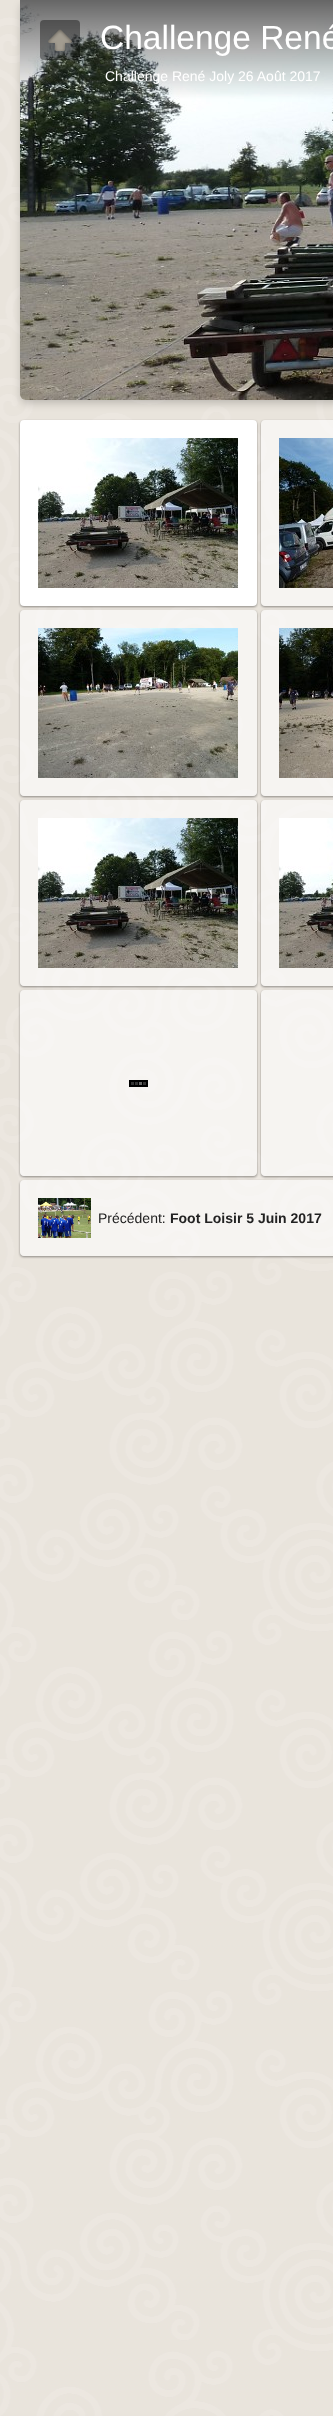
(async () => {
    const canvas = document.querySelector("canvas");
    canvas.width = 333;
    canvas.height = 2416;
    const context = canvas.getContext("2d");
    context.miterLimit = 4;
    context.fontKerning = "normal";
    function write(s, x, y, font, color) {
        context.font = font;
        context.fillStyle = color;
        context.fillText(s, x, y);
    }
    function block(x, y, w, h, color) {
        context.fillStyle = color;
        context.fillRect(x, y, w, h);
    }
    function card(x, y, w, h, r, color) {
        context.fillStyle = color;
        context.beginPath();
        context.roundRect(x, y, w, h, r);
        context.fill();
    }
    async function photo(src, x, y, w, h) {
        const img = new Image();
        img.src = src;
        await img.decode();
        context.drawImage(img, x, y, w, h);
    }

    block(0, 0, 333, 2416, "rgb(233, 228, 220)");
    await photo("media/1.png", 0, 17, 333, 2399);
    context.fillStyle = "rgba(0, 0, 0, 0.2)";
    context.filter = "blur(4px)";
    context.beginPath();
    context.roundRect(21, 3, 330, 400, 6);
    context.fill();
    context.filter = "none";
    await photo("media/2.png", 20, 0, 313, 400);
    card(40, 20, 40, 40, 4, "rgba(0, 0, 0, 0.4)");
    await photo("media/3.png", 48, 29, 24, 22);
    write("Challenge René", 100, 49, "33.5px Liberation Sans", "rgb(255, 255, 255)");
    write("Challenge René Joly 26 Août 2017", 105, 81, "14px Liberation Sans", "rgb(255, 255, 255)");
    context.fillStyle = "rgba(0, 0, 0, 0.4)";
    context.filter = "blur(1px)";
    context.beginPath();
    context.roundRect(20, 421, 237, 186, 4);
    context.fill();
    context.filter = "none";
    card(20, 420, 237, 186, 4, "rgb(255, 255, 255)");
    await photo("media/4.png", 38, 438, 200, 150);
    context.save();
    context.beginPath();
    context.moveTo(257, 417);
    context.lineTo(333, 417);
    context.lineTo(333, 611);
    context.lineTo(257, 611);
    context.closePath();
    context.moveTo(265, 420);
    context.lineTo(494, 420);
    context.bezierCurveTo(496, 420, 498, 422, 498, 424);
    context.lineTo(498, 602);
    context.bezierCurveTo(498, 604, 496, 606, 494, 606);
    context.lineTo(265, 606);
    context.bezierCurveTo(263, 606, 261, 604, 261, 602);
    context.lineTo(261, 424);
    context.bezierCurveTo(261, 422, 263, 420, 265, 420);
    context.closePath();
    context.clip("evenodd");
    context.fillStyle = "rgba(0, 0, 0, 0.4)";
    context.filter = "blur(1px)";
    context.beginPath();
    context.roundRect(261, 421, 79, 186, 4);
    context.fill();
    context.filter = "none";
    context.restore();
    context.fillStyle = "rgba(255, 255, 255, 0.6)";
    context.beginPath();
    context.roundRect(261, 420, 72, 186, [4, 0, 0, 4]);
    context.fill();
    await photo("media/5.png", 279, 438, 54, 150);
    context.save();
    context.beginPath();
    context.moveTo(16, 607);
    context.lineTo(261, 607);
    context.lineTo(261, 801);
    context.lineTo(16, 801);
    context.closePath();
    context.moveTo(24, 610);
    context.lineTo(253, 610);
    context.bezierCurveTo(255, 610, 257, 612, 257, 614);
    context.lineTo(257, 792);
    context.bezierCurveTo(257, 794, 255, 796, 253, 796);
    context.lineTo(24, 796);
    context.bezierCurveTo(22, 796, 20, 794, 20, 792);
    context.lineTo(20, 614);
    context.bezierCurveTo(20, 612, 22, 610, 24, 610);
    context.closePath();
    context.clip("evenodd");
    context.fillStyle = "rgba(0, 0, 0, 0.4)";
    context.filter = "blur(1px)";
    context.beginPath();
    context.roundRect(20, 611, 237, 186, 4);
    context.fill();
    context.filter = "none";
    context.restore();
    card(20, 610, 237, 186, 4, "rgba(255, 255, 255, 0.6)");
    await photo("media/6.png", 38, 628, 200, 150);
    context.save();
    context.beginPath();
    context.moveTo(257, 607);
    context.lineTo(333, 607);
    context.lineTo(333, 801);
    context.lineTo(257, 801);
    context.closePath();
    context.moveTo(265, 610);
    context.lineTo(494, 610);
    context.bezierCurveTo(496, 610, 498, 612, 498, 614);
    context.lineTo(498, 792);
    context.bezierCurveTo(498, 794, 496, 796, 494, 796);
    context.lineTo(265, 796);
    context.bezierCurveTo(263, 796, 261, 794, 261, 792);
    context.lineTo(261, 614);
    context.bezierCurveTo(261, 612, 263, 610, 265, 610);
    context.closePath();
    context.clip("evenodd");
    context.fillStyle = "rgba(0, 0, 0, 0.4)";
    context.filter = "blur(1px)";
    context.beginPath();
    context.roundRect(261, 611, 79, 186, 4);
    context.fill();
    context.filter = "none";
    context.restore();
    context.beginPath();
    context.roundRect(261, 610, 72, 186, [4, 0, 0, 4]);
    context.fill();
    await photo("media/7.png", 279, 628, 54, 150);
    context.save();
    context.beginPath();
    context.moveTo(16, 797);
    context.lineTo(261, 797);
    context.lineTo(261, 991);
    context.lineTo(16, 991);
    context.closePath();
    context.moveTo(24, 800);
    context.lineTo(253, 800);
    context.bezierCurveTo(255, 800, 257, 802, 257, 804);
    context.lineTo(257, 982);
    context.bezierCurveTo(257, 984, 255, 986, 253, 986);
    context.lineTo(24, 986);
    context.bezierCurveTo(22, 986, 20, 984, 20, 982);
    context.lineTo(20, 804);
    context.bezierCurveTo(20, 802, 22, 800, 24, 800);
    context.closePath();
    context.clip("evenodd");
    context.fillStyle = "rgba(0, 0, 0, 0.4)";
    context.filter = "blur(1px)";
    context.beginPath();
    context.roundRect(20, 801, 237, 186, 4);
    context.fill();
    context.filter = "none";
    context.restore();
    card(20, 800, 237, 186, 4, "rgba(255, 255, 255, 0.6)");
    await photo("media/4.png", 38, 818, 200, 150);
    context.save();
    context.beginPath();
    context.moveTo(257, 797);
    context.lineTo(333, 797);
    context.lineTo(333, 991);
    context.lineTo(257, 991);
    context.closePath();
    context.moveTo(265, 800);
    context.lineTo(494, 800);
    context.bezierCurveTo(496, 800, 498, 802, 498, 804);
    context.lineTo(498, 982);
    context.bezierCurveTo(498, 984, 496, 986, 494, 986);
    context.lineTo(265, 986);
    context.bezierCurveTo(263, 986, 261, 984, 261, 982);
    context.lineTo(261, 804);
    context.bezierCurveTo(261, 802, 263, 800, 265, 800);
    context.closePath();
    context.clip("evenodd");
    context.fillStyle = "rgba(0, 0, 0, 0.4)";
    context.filter = "blur(1px)";
    context.beginPath();
    context.roundRect(261, 801, 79, 186, 4);
    context.fill();
    context.filter = "none";
    context.restore();
    context.beginPath();
    context.roundRect(261, 800, 72, 186, [4, 0, 0, 4]);
    context.fill();
    await photo("media/8.png", 279, 818, 54, 150);
    context.save();
    context.beginPath();
    context.moveTo(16, 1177);
    context.lineTo(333, 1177);
    context.lineTo(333, 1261);
    context.lineTo(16, 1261);
    context.closePath();
    context.moveTo(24, 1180);
    context.lineTo(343, 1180);
    context.bezierCurveTo(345, 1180, 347, 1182, 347, 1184);
    context.lineTo(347, 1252);
    context.bezierCurveTo(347, 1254, 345, 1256, 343, 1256);
    context.lineTo(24, 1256);
    context.bezierCurveTo(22, 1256, 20, 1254, 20, 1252);
    context.lineTo(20, 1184);
    context.bezierCurveTo(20, 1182, 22, 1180, 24, 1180);
    context.closePath();
    context.clip("evenodd");
    context.fillStyle = "rgba(0, 0, 0, 0.4)";
    context.filter = "blur(1px)";
    context.beginPath();
    context.roundRect(20, 1181, 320, 76, 4);
    context.fill();
    context.filter = "none";
    context.restore();
    context.beginPath();
    context.roundRect(20, 1180, 313, 76, [4, 0, 0, 4]);
    context.fill();
    context.save();
    context.beginPath();
    context.moveTo(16, 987);
    context.lineTo(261, 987);
    context.lineTo(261, 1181);
    context.lineTo(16, 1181);
    context.closePath();
    context.moveTo(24, 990);
    context.lineTo(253, 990);
    context.bezierCurveTo(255, 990, 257, 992, 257, 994);
    context.lineTo(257, 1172);
    context.bezierCurveTo(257, 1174, 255, 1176, 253, 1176);
    context.lineTo(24, 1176);
    context.bezierCurveTo(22, 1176, 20, 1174, 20, 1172);
    context.lineTo(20, 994);
    context.bezierCurveTo(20, 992, 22, 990, 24, 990);
    context.closePath();
    context.clip("evenodd");
    context.fillStyle = "rgba(0, 0, 0, 0.4)";
    context.filter = "blur(1px)";
    context.beginPath();
    context.roundRect(20, 991, 237, 186, 4);
    context.fill();
    context.filter = "none";
    context.restore();
    card(20, 990, 237, 186, 4, "rgba(255, 255, 255, 0.6)");
    await photo("media/9.png", 129, 1080, 19, 7);
    context.save();
    context.beginPath();
    context.moveTo(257, 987);
    context.lineTo(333, 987);
    context.lineTo(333, 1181);
    context.lineTo(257, 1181);
    context.closePath();
    context.moveTo(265, 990);
    context.lineTo(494, 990);
    context.bezierCurveTo(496, 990, 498, 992, 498, 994);
    context.lineTo(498, 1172);
    context.bezierCurveTo(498, 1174, 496, 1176, 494, 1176);
    context.lineTo(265, 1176);
    context.bezierCurveTo(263, 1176, 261, 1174, 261, 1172);
    context.lineTo(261, 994);
    context.bezierCurveTo(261, 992, 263, 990, 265, 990);
    context.closePath();
    context.clip("evenodd");
    context.fillStyle = "rgba(0, 0, 0, 0.4)";
    context.filter = "blur(1px)";
    context.beginPath();
    context.roundRect(261, 991, 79, 186, 4);
    context.fill();
    context.filter = "none";
    context.restore();
    context.beginPath();
    context.roundRect(261, 990, 72, 186, [4, 0, 0, 4]);
    context.fill();
    await photo("media/10.png", 38, 1198, 53, 40);
    write("Précédent:", 98, 1223, "14px Liberation Sans", "rgb(34, 34, 34)");
    write("Foot Loisir 5 Juin 2017", 170, 1223, "bold 14px Liberation Sans", "rgb(34, 34, 34)");
})();
